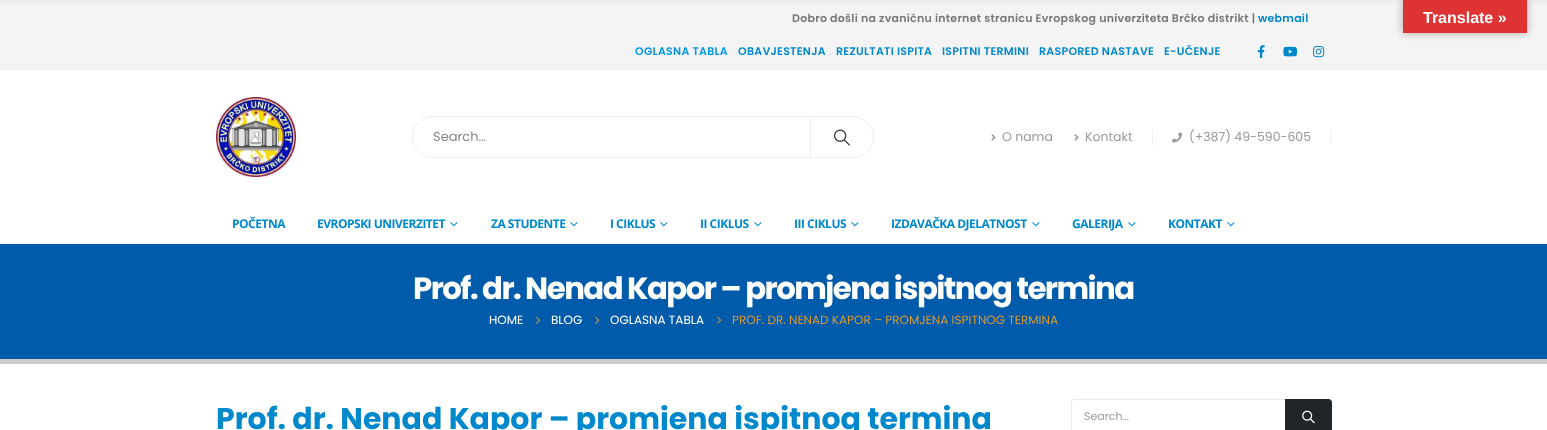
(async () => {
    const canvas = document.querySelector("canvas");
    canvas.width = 1547;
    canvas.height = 430;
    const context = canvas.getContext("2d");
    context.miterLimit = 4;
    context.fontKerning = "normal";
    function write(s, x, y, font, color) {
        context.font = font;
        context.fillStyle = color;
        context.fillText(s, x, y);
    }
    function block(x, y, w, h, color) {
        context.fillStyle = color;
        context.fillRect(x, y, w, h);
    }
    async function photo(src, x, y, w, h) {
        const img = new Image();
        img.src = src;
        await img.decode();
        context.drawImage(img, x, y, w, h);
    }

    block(0, 0, 1547, 430, "rgb(255, 255, 255)");
    block(0, 0, 1547, 3, "rgb(237, 237, 237)");
    block(0, 3, 1547, 66, "rgb(244, 244, 244)");
    block(0, 69, 1547, 1, "rgb(237, 237, 237)");
    context.letterSpacing = "0.27px";
    write("Dobro došli na zvaničnu internet stranicu Evropskog univerziteta Brčko distrikt |", 792, 22, "600 11px Poppins", "rgb(119, 119, 119)");
    write("webmail", 1258, 22, "600 11px Poppins", "rgb(0, 136, 204)");
    write("OGLASNA TABLA", 635, 55, "600 11px Poppins", "rgb(0, 153, 230)");
    write("OBAVJESTENJA", 738, 55, "600 11px Poppins", "rgb(0, 136, 204)");
    write("REZULTATI ISPITA", 836, 55, "600 11px Poppins", "rgb(0, 136, 204)");
    write("ISPITNI TERMINI", 942, 55, "600 11px Poppins", "rgb(0, 136, 204)");
    write("RASPORED NASTAVE", 1039, 55, "600 11px Poppins", "rgb(0, 136, 204)");
    write("E-UČENJE", 1164, 55, "600 11px Poppins", "rgb(0, 136, 204)");
    await photo("media/1.png", 1258, 45, 7, 13);
    await photo("media/2.png", 1283, 46, 15, 11);
    await photo("media/3.png", 1313, 46, 12, 12);
    await photo("media/4.png", 216, 97, 80, 80);
    context.beginPath();
    context.roundRect(412.5, 116.5, 461, 41, 20.5);
    context.strokeStyle = "rgb(238, 238, 238)";
    context.stroke();
    block(810, 117, 1, 40, "rgb(238, 238, 238)");
    context.letterSpacing = "0px";
    write("Search…", 433, 141, "13px Poppins", "rgb(136, 136, 136)");
    await photo("media/5.png", 834, 129, 16, 17);
    await photo("media/6.png", 991, 134, 5, 7);
    write("O nama", 1002, 141, "12.5px Poppins", "rgb(153, 153, 153)");
    await photo("media/6.png", 1074, 134, 5, 7);
    write("Kontakt", 1085, 141, "12.5px Poppins", "rgb(153, 153, 153)");
    block(1152, 129, 1, 16, "rgb(242, 242, 242)");
    await photo("media/7.png", 1172, 132, 10, 11);
    write("(+387) 49-590-605", 1189, 141, "12.5px Poppins", "rgb(153, 153, 153)");
    block(1330, 129, 1, 16, "rgb(242, 242, 242)");
    context.letterSpacing = "-0.5px";
    write("POČETNA", 232, 228, "bold 12px Open Sans", "rgb(0, 136, 204)");
    write("EVROPSKI UNIVERZITET", 317, 228, "bold 12px Open Sans", "rgb(0, 136, 204)");
    await photo("media/8.png", 450, 222, 8, 5);
    write("ZA STUDENTE", 491, 228, "bold 12px Open Sans", "rgb(0, 136, 204)");
    await photo("media/8.png", 570, 222, 8, 5);
    write("I CIKLUS", 610, 228, "bold 12px Open Sans", "rgb(0, 136, 204)");
    await photo("media/8.png", 660, 222, 8, 5);
    write("II CIKLUS", 700, 228, "bold 12px Open Sans", "rgb(0, 136, 204)");
    await photo("media/8.png", 754, 222, 8, 5);
    write("III CIKLUS", 794, 228, "bold 12px Open Sans", "rgb(0, 136, 204)");
    await photo("media/8.png", 851, 222, 8, 5);
    write("IZDAVAČKA DJELATNOST", 891, 228, "bold 12px Open Sans", "rgb(0, 136, 204)");
    await photo("media/8.png", 1032, 222, 8, 5);
    write("GALERIJA", 1072, 228, "bold 12px Open Sans", "rgb(0, 136, 204)");
    await photo("media/8.png", 1128, 222, 8, 5);
    write("KONTAKT", 1168, 228, "bold 12px Open Sans", "rgb(0, 136, 204)");
    await photo("media/8.png", 1227, 222, 8, 5);
    block(0, 244, 1547, 115, "rgb(0, 91, 170)");
    block(0, 359, 1547, 5, "rgb(204, 204, 204)");
    context.letterSpacing = "-1.55px";
    write("Prof. dr. Nenad Kapor – promjena ispitnog termina", 413, 299, "bold 30.8px Poppins", "rgb(255, 255, 255)");
    context.letterSpacing = "0px";
    write("HOME", 489, 324, "12px Poppins", "rgb(255, 255, 255)");
    await photo("media/9.png", 536, 316, 5, 8);
    write("BLOG", 551, 324, "12px Poppins", "rgb(255, 255, 255)");
    await photo("media/9.png", 595, 316, 5, 8);
    write("OGLASNA TABLA", 610, 324, "12px Poppins", "rgb(255, 255, 255)");
    await photo("media/9.png", 717, 316, 5, 8);
    write("PROF. DR. NENAD KAPOR – PROMJENA ISPITNOG TERMINA", 732, 324, "12px Poppins", "rgb(221, 153, 51)");
    write("Prof. dr. Nenad Kapor – promjena ispitnog termina", 216, 429, "bold 30px Poppins", "rgb(0, 136, 204)");
    context.beginPath();
    context.moveTo(1074, 399.5);
    context.lineTo(1285.5, 399.5);
    context.lineTo(1285.5, 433.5);
    context.lineTo(1074, 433.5);
    context.bezierCurveTo(1072.5, 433.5, 1071.5, 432.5, 1071.5, 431);
    context.lineTo(1071.5, 402);
    context.bezierCurveTo(1071.5, 400.5, 1072.5, 399.5, 1074, 399.5);
    context.closePath();
    context.strokeStyle = "rgb(235, 235, 235)";
    context.stroke();
    write("Search…", 1084, 420, "11px Poppins", "rgb(153, 153, 153)");
    context.fillStyle = "rgb(33, 37, 41)";
    context.beginPath();
    context.moveTo(1285, 399);
    context.lineTo(1328, 399);
    context.bezierCurveTo(1330, 399, 1332, 401, 1332, 403);
    context.lineTo(1332, 430);
    context.bezierCurveTo(1332, 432, 1330, 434, 1328, 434);
    context.lineTo(1285, 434);
    context.closePath();
    context.fill();
    context.beginPath();
    context.moveTo(1285, 399);
    context.lineTo(1286, 400);
    context.bezierCurveTo(1291, 400, 1328, 399, 1330, 401);
    context.lineTo(1331, 400);
    context.lineTo(1328, 399);
    context.closePath();
    context.fill();
    context.beginPath();
    context.moveTo(1332, 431);
    context.lineTo(1332, 403);
    context.bezierCurveTo(1332, 402, 1331.5, 401, 1331, 400);
    context.lineTo(1330, 401);
    context.bezierCurveTo(1331, 401, 1331, 402, 1331, 403);
    context.lineTo(1331, 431);
    context.bezierCurveTo(1331, 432, 1331, 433, 1330, 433);
    context.lineTo(1331, 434);
    context.bezierCurveTo(1331.5, 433, 1332, 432, 1332, 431);
    context.closePath();
    context.fill();
    await photo("media/10.png", 1302, 410, 13, 14);
    context.fillStyle = "rgba(0, 0, 0, 0.3)";
    context.filter = "blur(4.5px)";
    context.beginPath();
    context.rect(1403, 0, 124, 33);
    context.fill();
    context.filter = "none";
    block(1403, 0, 124, 33, "rgb(221, 51, 51)");
    write("Translate »", 1423, 23, "bold 16px Liberation Sans", "rgb(255, 255, 255)");
})();
